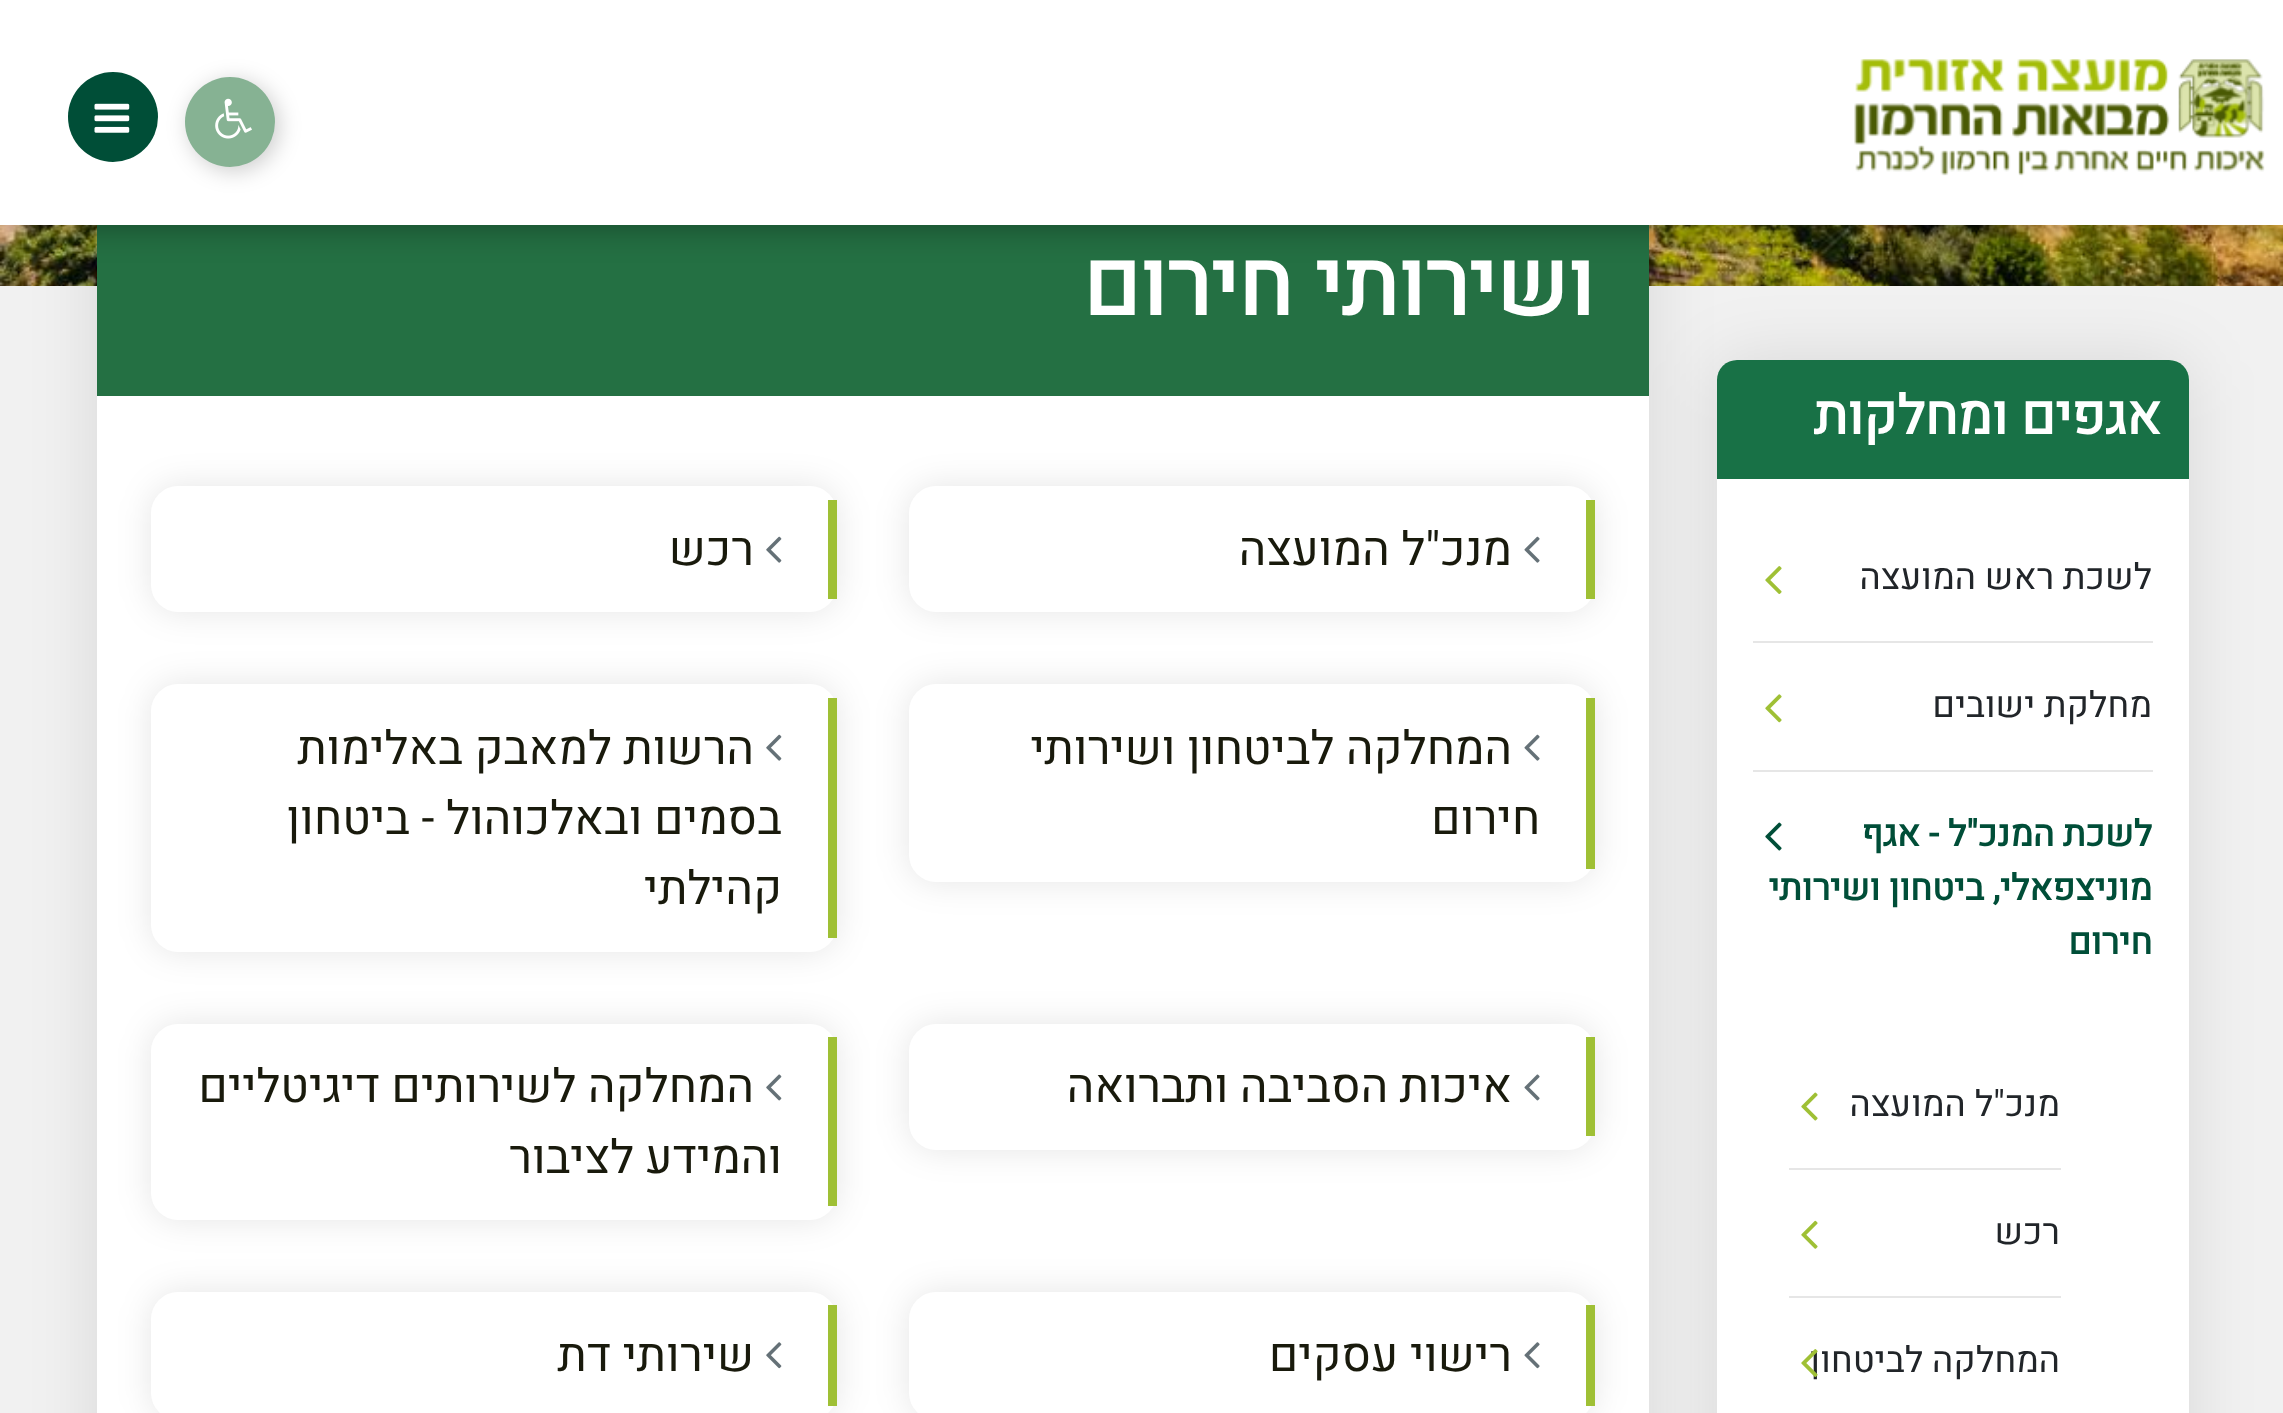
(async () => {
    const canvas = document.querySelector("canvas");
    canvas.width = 2283;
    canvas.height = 1413;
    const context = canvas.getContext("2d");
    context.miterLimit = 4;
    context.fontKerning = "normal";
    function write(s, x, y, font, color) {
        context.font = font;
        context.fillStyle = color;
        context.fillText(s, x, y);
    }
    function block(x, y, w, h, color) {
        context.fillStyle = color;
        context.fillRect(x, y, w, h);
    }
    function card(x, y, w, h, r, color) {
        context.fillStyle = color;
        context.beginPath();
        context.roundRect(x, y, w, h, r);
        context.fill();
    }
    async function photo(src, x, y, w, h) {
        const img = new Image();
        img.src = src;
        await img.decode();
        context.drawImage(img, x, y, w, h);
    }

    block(0, 0, 2283, 1413, "rgb(241, 241, 241)");
    await photo("media/4.png", 0, 225, 2283, 61);
    context.fillStyle = "rgba(0, 0, 0, 0.1)";
    context.filter = "blur(34px)";
    context.beginPath();
    context.roundRect(1717, 360, 472, 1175, 20);
    context.fill();
    context.filter = "none";
    context.fillStyle = "rgb(255, 255, 255)";
    context.beginPath();
    context.moveTo(1737, 360);
    context.lineTo(2169, 360);
    context.bezierCurveTo(2180, 360, 2189, 369, 2189, 380);
    context.lineTo(2189, 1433);
    context.lineTo(1717, 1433);
    context.lineTo(1717, 380);
    context.bezierCurveTo(1717, 369, 1726, 360, 1737, 360);
    context.closePath();
    context.fill();
    context.fillStyle = "rgb(24, 113, 70)";
    context.beginPath();
    context.roundRect(1717, 360, 472, 119, [20, 20, 0, 0]);
    context.fill();
    context.fillStyle = "rgba(0, 0, 0, 0.1)";
    context.filter = "blur(34px)";
    context.beginPath();
    context.roundRect(97, 16, 1552, 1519, 20);
    context.fill();
    context.filter = "none";
    block(97, 225, 1552, 171, "rgb(36, 112, 67)");
    context.fillStyle = "rgba(0, 0, 0, 0.39)";
    context.filter = "blur(17px)";
    context.beginPath();
    context.rect(0, 0, 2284, 225);
    context.fill();
    context.filter = "none";
    block(0, 0, 2283, 225, "rgb(255, 255, 255)");
    await photo("media/1.png", 1854, 59, 411, 117);
    context.fillStyle = "rgb(0, 78, 55)";
    context.beginPath();
    context.arc(113, 117, 45, 0, Math.PI * 2);
    context.fill();
    await photo("media/2.png", 94, 103, 36, 30);
    context.fillStyle = "rgba(0, 0, 0, 0.2)";
    context.filter = "blur(11px)";
    context.beginPath();
    context.roundRect(189, 81, 90, 90, 45);
    context.fill();
    context.filter = "none";
    context.fillStyle = "rgb(134, 178, 147)";
    context.beginPath();
    context.arc(230, 122, 45, 0, Math.PI * 2);
    context.fill();
    await photo("media/3.png", 215, 98, 37, 41);
    context.direction = "rtl";
    write("אגפים ומחלקות", 2161, 434, "bold 54px Heebo", "rgb(255, 255, 255)");
    block(1753, 641, 400, 2, "rgb(230, 230, 230)");
    write("לשכת ראש המועצה", 2152, 589, "36px Heebo", "rgb(33, 37, 41)");
    await photo("media/5.png", 1765, 566, 17, 28);
    block(1753, 770, 400, 2, "rgb(230, 230, 230)");
    write("מחלקת ישובים", 2152, 717, "36px Heebo", "rgb(33, 37, 41)");
    await photo("media/6.png", 1765, 694, 17, 29);
    write("לשכת המנכ\"ל - אגף", 2152, 846, "bold 36px Heebo", "rgb(0, 78, 56)");
    write("מוניצפאלי, ביטחון ושירותי", 2152, 900, "bold 36px Heebo", "rgb(0, 78, 56)");
    write("חירום", 2152, 954, "bold 36px Heebo", "rgb(0, 78, 56)");
    await photo("media/7.png", 1765, 822, 17, 29);
    block(1789, 1168, 272, 2, "rgb(230, 230, 230)");
    write("מנכ\"ל המועצה", 2060, 1116, "36px Heebo", "rgb(33, 37, 41)");
    await photo("media/8.png", 1801, 1092, 17, 29);
    block(1789, 1296, 272, 2, "rgb(230, 230, 230)");
    write("רכש", 2060, 1244, "36px Heebo", "rgb(33, 37, 41)");
    await photo("media/9.png", 1801, 1220, 17, 29);
    write("המחלקה לביטחון", 2060, 1372, "36px Heebo", "rgb(33, 37, 41)");
    await photo("media/10.png", 1801, 1349, 17, 28);
    block(97, 396, 1552, 1017, "rgb(255, 255, 255)");
    write("ושירותי חירום", 1594, 315, "bold 90px Heebo", "rgb(255, 255, 255)");
    context.fillStyle = "rgba(0, 0, 0, 0.1)";
    context.filter = "blur(17px)";
    context.beginPath();
    context.roundRect(909, 486, 686, 126, 27);
    context.fill();
    context.filter = "none";
    card(909, 486, 686, 126, 27, "rgb(255, 255, 255)");
    block(1586, 500, 9, 99, "rgb(159, 192, 53)");
    await photo("media/11.png", 1524, 536, 16, 27);
    write("מנכ\"ל המועצה", 1512, 565, "46.75px Heebo", "rgb(25, 26, 12)");
    context.fillStyle = "rgba(0, 0, 0, 0.1)";
    context.filter = "blur(17px)";
    context.beginPath();
    context.roundRect(151, 486, 686, 126, 27);
    context.fill();
    context.filter = "none";
    card(151, 486, 686, 126, 27, "rgb(255, 255, 255)");
    block(828, 500, 9, 99, "rgb(159, 192, 53)");
    await photo("media/12.png", 766, 536, 16, 27);
    write("רכש", 754, 565, "46.75px Heebo", "rgb(25, 26, 12)");
    context.fillStyle = "rgba(0, 0, 0, 0.1)";
    context.filter = "blur(17px)";
    context.beginPath();
    context.roundRect(909, 684, 686, 198, 27);
    context.fill();
    context.filter = "none";
    card(909, 684, 686, 198, 27, "rgb(255, 255, 255)");
    block(1586, 698, 9, 171, "rgb(159, 192, 53)");
    await photo("media/11.png", 1524, 734, 16, 27);
    write("המחלקה לביטחון ושירותי", 1512, 764, "46.75px Heebo", "rgb(25, 26, 12)");
    write("חירום", 1540, 834, "46.75px Heebo", "rgb(25, 26, 12)");
    context.fillStyle = "rgba(0, 0, 0, 0.1)";
    context.filter = "blur(17px)";
    context.beginPath();
    context.roundRect(151, 684, 686, 268, 27);
    context.fill();
    context.filter = "none";
    card(151, 684, 686, 268, 27, "rgb(255, 255, 255)");
    block(828, 698, 9, 240, "rgb(159, 192, 53)");
    await photo("media/12.png", 766, 734, 16, 27);
    write("הרשות למאבק באלימות", 754, 764, "46.75px Heebo", "rgb(25, 26, 12)");
    write("בסמים ובאלכוהול - ביטחון", 782, 834, "46.75px Heebo", "rgb(25, 26, 12)");
    write("קהילתי", 782, 904, "46.75px Heebo", "rgb(25, 26, 12)");
    context.fillStyle = "rgba(0, 0, 0, 0.1)";
    context.filter = "blur(17px)";
    context.beginPath();
    context.roundRect(909, 1024, 686, 126, 27);
    context.fill();
    context.filter = "none";
    card(909, 1024, 686, 126, 27, "rgb(255, 255, 255)");
    block(1586, 1037, 9, 99, "rgb(159, 192, 53)");
    await photo("media/13.png", 1524, 1074, 16, 27);
    write("איכות הסביבה ותברואה", 1512, 1102, "46.75px Heebo", "rgb(25, 26, 12)");
    context.fillStyle = "rgba(0, 0, 0, 0.1)";
    context.filter = "blur(17px)";
    context.beginPath();
    context.roundRect(151, 1024, 686, 196, 27);
    context.fill();
    context.filter = "none";
    card(151, 1024, 686, 196, 27, "rgb(255, 255, 255)");
    block(828, 1037, 9, 169, "rgb(159, 192, 53)");
    await photo("media/14.png", 766, 1074, 16, 27);
    write("המחלקה לשירותים דיגיטליים", 754, 1102, "46.75px Heebo", "rgb(25, 26, 12)");
    write("והמידע לציבור", 782, 1173, "46.75px Heebo", "rgb(25, 26, 12)");
    context.fillStyle = "rgba(0, 0, 0, 0.1)";
    context.filter = "blur(17px)";
    context.beginPath();
    context.roundRect(909, 1292, 686, 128, 27);
    context.fill();
    context.filter = "none";
    card(909, 1292, 686, 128, 27, "rgb(255, 255, 255)");
    block(1586, 1305, 9, 101, "rgb(159, 192, 53)");
    await photo("media/15.png", 1524, 1342, 16, 27);
    write("רישוי עסקים", 1512, 1371, "46.75px Heebo", "rgb(25, 26, 12)");
    context.fillStyle = "rgba(0, 0, 0, 0.1)";
    context.filter = "blur(17px)";
    context.beginPath();
    context.roundRect(151, 1292, 686, 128, 27);
    context.fill();
    context.filter = "none";
    card(151, 1292, 686, 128, 27, "rgb(255, 255, 255)");
    block(828, 1305, 9, 101, "rgb(159, 192, 53)");
    await photo("media/16.png", 766, 1342, 16, 27);
    write("שירותי דת", 754, 1371, "46.75px Heebo", "rgb(25, 26, 12)");
})();
